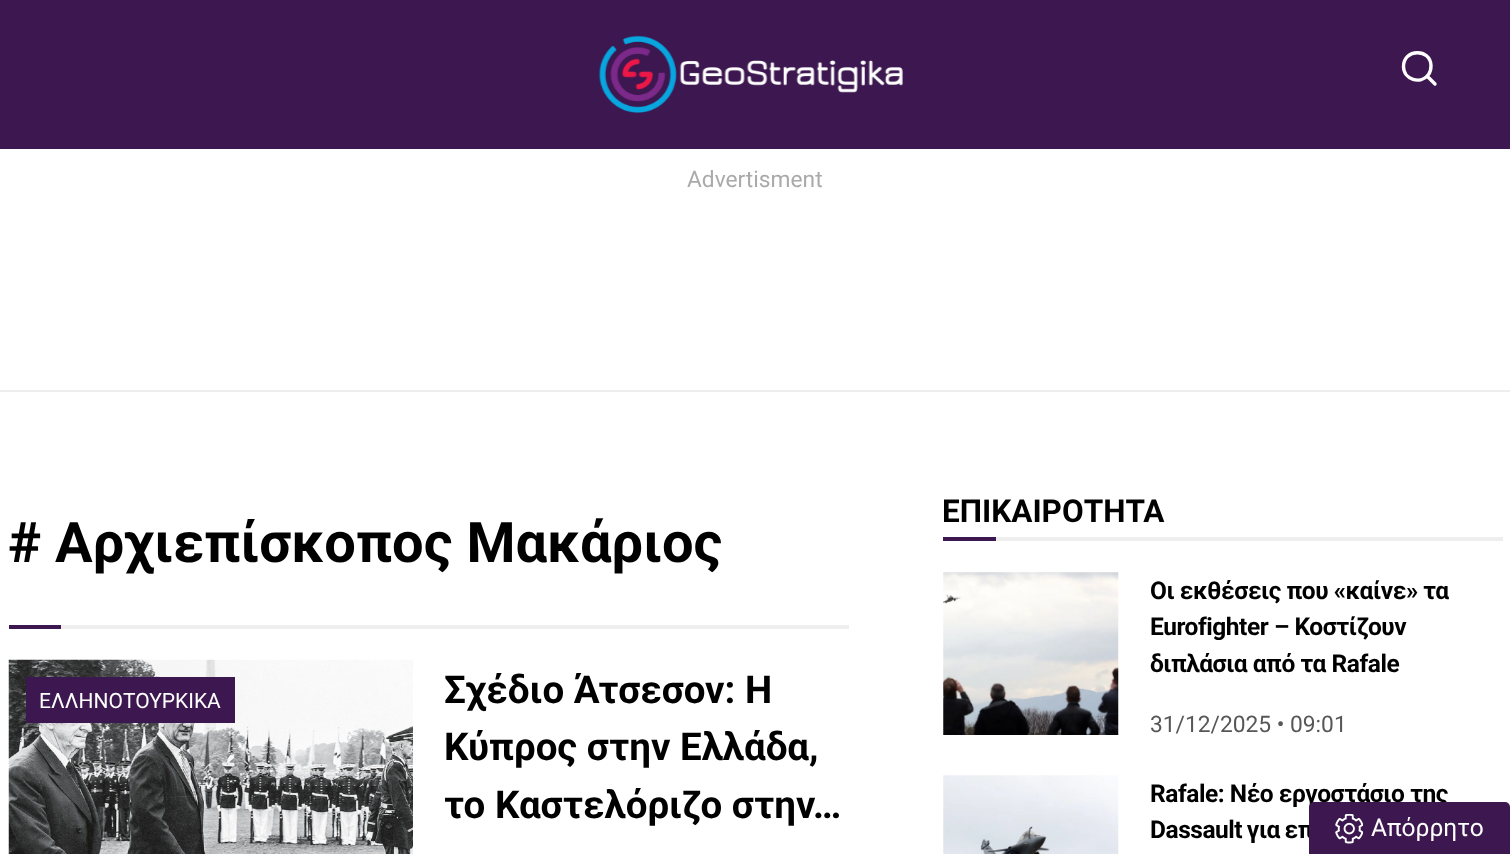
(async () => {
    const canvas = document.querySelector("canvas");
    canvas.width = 1510;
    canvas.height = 854;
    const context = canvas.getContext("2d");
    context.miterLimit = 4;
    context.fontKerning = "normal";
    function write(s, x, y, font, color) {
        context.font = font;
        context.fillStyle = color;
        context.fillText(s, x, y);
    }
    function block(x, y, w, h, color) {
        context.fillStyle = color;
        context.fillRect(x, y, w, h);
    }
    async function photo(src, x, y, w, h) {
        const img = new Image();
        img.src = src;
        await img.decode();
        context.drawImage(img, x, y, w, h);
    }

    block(0, 0, 1510, 854, "rgb(255, 255, 255)");
    block(0, 0, 1510, 149, "rgb(61, 23, 79)");
    await photo("media/1.png", 598, 35, 305, 78);
    context.beginPath();
    context.moveTo(1403.5, 66.5);
    context.bezierCurveTo(1403.5, 48.5, 1430.5, 48, 1431, 65.5);
    context.bezierCurveTo(1431, 69, 1430.5, 72, 1428.5, 74.5);
    context.bezierCurveTo(1420.5, 85, 1403.5, 79.5, 1403.5, 66.5);
    context.closePath();
    context.moveTo(1427, 76);
    context.lineTo(1435, 84);
    context.strokeStyle = "rgb(255, 255, 255)";
    context.lineWidth = 3.4;
    context.lineCap = "round";
    context.lineJoin = "round";
    context.stroke();
    block(0, 390, 1510, 2, "rgb(238, 238, 238)");
    write("Advertisment", 687, 187, "22.75px Roboto", "rgb(170, 170, 170)");
    block(61, 625, 788, 4, "rgb(238, 238, 238)");
    write("# Αρχιεπίσκοπος Μακάριος", 8, 562, "bold 56px Roboto", "rgb(0, 0, 0)");
    block(9, 625, 52, 4, "rgb(61, 23, 79)");
    await photo("media/2.png", 8, 659, 405, 195);
    block(26, 677, 209, 46, "rgb(61, 23, 79)");
    write("ΕΛΛΗΝΟΤΟΥΡΚΙΚΑ", 39, 708, "21px Roboto", "rgb(255, 255, 255)");
    write("Σχέδιο Άτσεσον: Η", 444, 703, "bold 38.5px Roboto", "rgb(0, 0, 0)");
    write("Κύπρος στην Ελλάδα,", 444, 760, "bold 38.5px Roboto", "rgb(0, 0, 0)");
    context.save();
    context.beginPath();
    context.rect(445, 660, 404, 173);
    context.clip();
    write("το Καστελόριζο στην…", 444, 818, "bold 38.5px Roboto", "rgb(0, 0, 0)");
    context.restore();
    block(996, 537, 507, 4, "rgb(238, 238, 238)");
    write("ΕΠΙΚΑΙΡΟΤΗΤΑ", 942, 522, "bold 31.5px Roboto", "rgb(0, 0, 0)");
    block(943, 537, 53, 4, "rgb(61, 23, 79)");
    await photo("media/3.png", 943, 572, 176, 163);
    context.letterSpacing = "-0.45px";
    write("Οι εκθέσεις που «καίνε» τα", 1150, 599, "bold 24.5px Roboto", "rgb(0, 0, 0)");
    write("Eurofighter – Κοστίζουν", 1150, 635, "bold 24.5px Roboto", "rgb(0, 0, 0)");
    write("διπλάσια από τα Rafale", 1150, 672, "bold 24.5px Roboto", "rgb(0, 0, 0)");
    context.letterSpacing = "0px";
    write("31/12/2025 • 09:01", 1150, 732, "22.75px Roboto", "rgb(87, 87, 87)");
    await photo("media/4.png", 943, 775, 176, 79);
    context.letterSpacing = "-0.45px";
    write("Rafale: Νέο εργοστάσιο της", 1150, 802, "bold 24.5px Roboto", "rgb(0, 0, 0)");
    context.wordSpacing = "-1px";
    write("Dassault για επ", 1150, 838, "bold 24.5px Roboto", "rgb(0, 0, 0)");
    context.fillStyle = "rgb(61, 23, 79)";
    context.beginPath();
    context.roundRect(1309, 802, 201, 52, [5, 5, 0, 0]);
    context.fill();
    await photo("media/5.png", 1335, 814, 28, 30);
    context.letterSpacing = "0px";
    context.wordSpacing = "0px";
    write("Απόρρητο", 1371, 836, "24.5px Roboto", "rgb(255, 255, 255)");
})();
